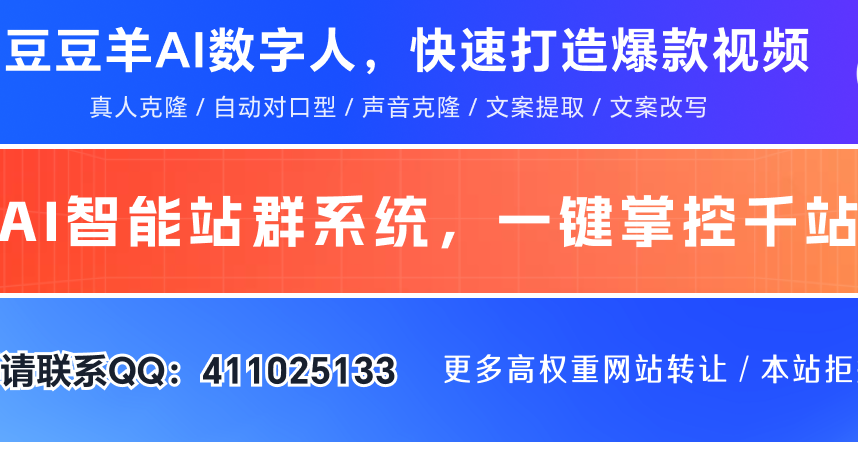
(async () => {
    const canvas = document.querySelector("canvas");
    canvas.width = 858;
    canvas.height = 461;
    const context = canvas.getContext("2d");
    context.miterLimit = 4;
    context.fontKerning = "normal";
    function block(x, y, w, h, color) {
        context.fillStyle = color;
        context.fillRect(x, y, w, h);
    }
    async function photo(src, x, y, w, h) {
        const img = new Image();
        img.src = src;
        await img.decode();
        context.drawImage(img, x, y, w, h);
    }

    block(0, 0, 858, 461, "rgb(255, 255, 255)");
    await photo("media/1.png", 0, 0, 858, 144);
    await photo("media/2.png", 0, 149, 858, 144);
    await photo("media/3.png", 0, 298, 858, 144);
})();
